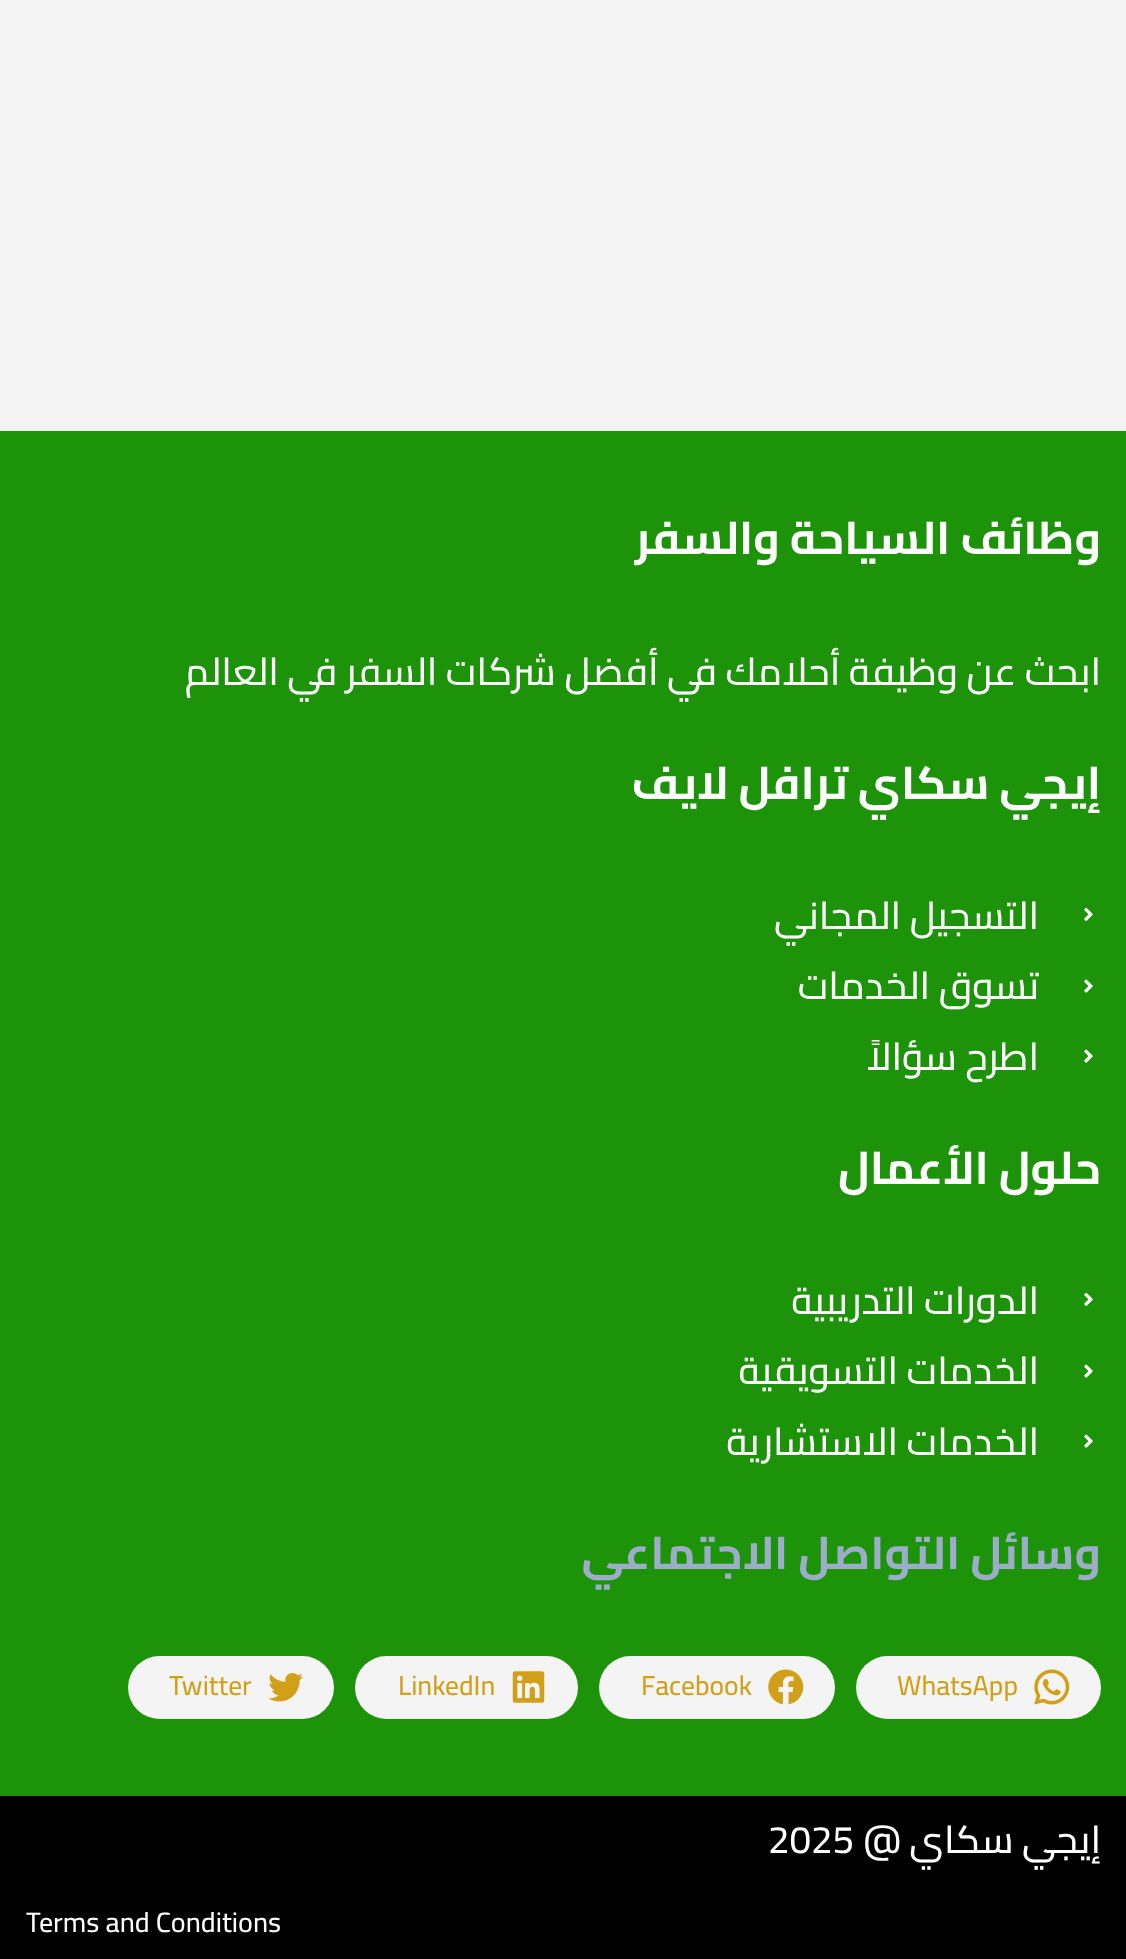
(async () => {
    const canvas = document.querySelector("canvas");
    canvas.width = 1126;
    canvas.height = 1959;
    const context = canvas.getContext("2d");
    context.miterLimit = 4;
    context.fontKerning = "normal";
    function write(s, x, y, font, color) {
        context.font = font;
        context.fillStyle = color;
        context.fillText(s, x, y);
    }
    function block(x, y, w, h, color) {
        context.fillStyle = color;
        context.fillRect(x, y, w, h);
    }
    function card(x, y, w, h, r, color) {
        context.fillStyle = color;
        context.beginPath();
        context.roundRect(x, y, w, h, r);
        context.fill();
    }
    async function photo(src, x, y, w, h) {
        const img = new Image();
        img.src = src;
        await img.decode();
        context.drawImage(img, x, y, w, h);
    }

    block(0, 0, 1126, 1959, "rgb(244, 244, 244)");
    block(0, 431, 1126, 1365, "rgb(28, 147, 9)");
    context.direction = "rtl";
    write("وظائف السياحة والسفر", 1101, 554, "bold 45.5px Cairo", "rgb(255, 255, 255)");
    write("ابحث عن وظيفة أحلامك في أفضل شركات السفر في العالم", 1101, 685, "500 38.5px Cairo", "rgb(255, 255, 255)");
    write("إيجي سكاي ترافل لايف", 1101, 799, "bold 45.5px Cairo", "rgb(255, 255, 255)");
    await photo("media/1.png", 1084, 907, 9, 14);
    write("التسجيل المجاني", 1039, 929, "500 38.5px Cairo", "rgb(255, 255, 255)");
    await photo("media/2.png", 1084, 979, 9, 14);
    write("تسوق الخدمات", 1039, 999, "500 38.5px Cairo", "rgb(255, 255, 255)");
    await photo("media/2.png", 1084, 1049, 9, 14);
    write("اطرح سؤالاً", 1039, 1070, "500 38.5px Cairo", "rgb(255, 255, 255)");
    write("حلول الأعمال", 1101, 1184, "bold 45.5px Cairo", "rgb(255, 255, 255)");
    await photo("media/1.png", 1084, 1292, 9, 14);
    write("الدورات التدريبية", 1039, 1314, "500 38.5px Cairo", "rgb(255, 255, 255)");
    await photo("media/2.png", 1084, 1364, 9, 14);
    write("الخدمات التسويقية", 1039, 1384, "500 38.5px Cairo", "rgb(255, 255, 255)");
    await photo("media/2.png", 1084, 1434, 9, 14);
    write("الخدمات الاستشارية", 1039, 1455, "500 38.5px Cairo", "rgb(255, 255, 255)");
    write("وسائل التواصل الاجتماعي", 1101, 1569, "bold 45.5px Cairo", "rgb(157, 173, 201)");
    card(856, 1656, 245, 63, 31.5, "rgb(244, 244, 244)");
    await photo("media/3.png", 1034, 1669, 36, 36);
    context.direction = "ltr";
    write("WhatsApp", 897, 1695, "500 27.5px Cairo", "rgb(209, 160, 24)");
    card(599, 1656, 236, 63, 31.5, "rgb(244, 244, 244)");
    await photo("media/4.png", 768, 1669, 36, 36);
    write("Facebook", 641, 1695, "500 27.5px Cairo", "rgb(209, 160, 24)");
    card(355, 1656, 223, 63, 31.5, "rgb(244, 244, 244)");
    await photo("media/5.png", 512, 1671, 33, 32);
    write("LinkedIn", 398, 1695, "500 27.5px Cairo", "rgb(209, 160, 24)");
    card(128, 1656, 206, 63, 31.5, "rgb(244, 244, 244)");
    await photo("media/6.png", 268, 1673, 35, 29);
    write("Twitter", 169, 1695, "500 27.5px Cairo", "rgb(209, 160, 24)");
    block(0, 1796, 1126, 163, "rgb(0, 0, 0)");
    context.direction = "rtl";
    write("إيجي سكاي @", 1101, 1853, "500 38.5px Cairo", "rgb(255, 255, 255)");
    context.direction = "ltr";
    write("2025", 768, 1853, "500 38.5px Cairo", "rgb(255, 255, 255)");
    write("Terms and Conditions", 26, 1932, "500 28px Cairo", "rgb(255, 255, 255)");
})();
